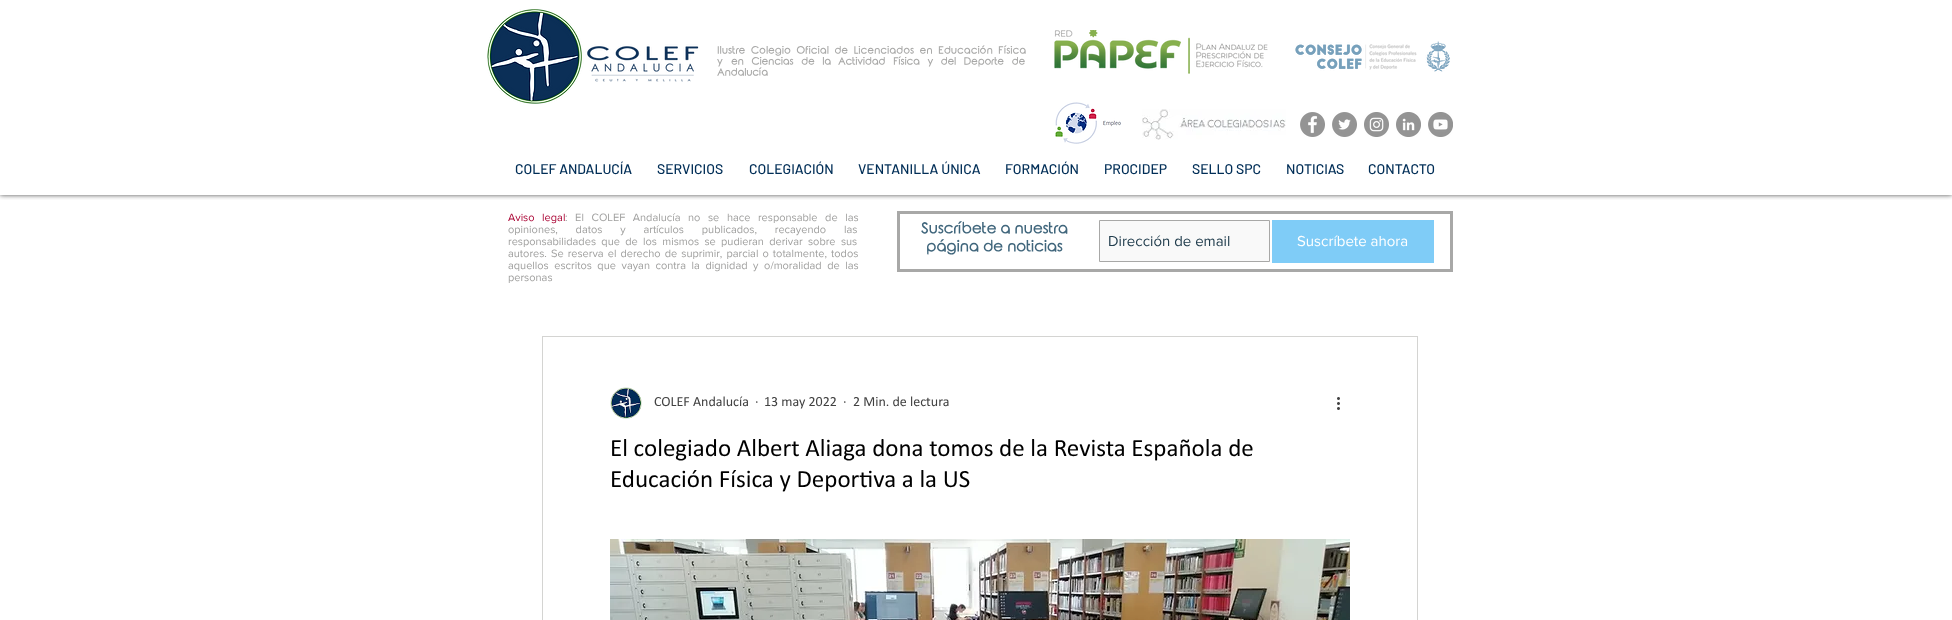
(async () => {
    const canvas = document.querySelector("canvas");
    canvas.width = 1952;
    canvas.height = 620;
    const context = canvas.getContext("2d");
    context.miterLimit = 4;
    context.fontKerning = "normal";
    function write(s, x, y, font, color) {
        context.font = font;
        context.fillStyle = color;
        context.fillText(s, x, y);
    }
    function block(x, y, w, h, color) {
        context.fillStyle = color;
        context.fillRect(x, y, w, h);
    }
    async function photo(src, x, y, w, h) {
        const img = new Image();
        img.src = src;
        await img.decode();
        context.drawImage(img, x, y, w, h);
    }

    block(0, 0, 1952, 620, "rgb(255, 255, 255)");
    context.save();
    context.beginPath();
    context.rect(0, 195, 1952, 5);
    context.clip();
    context.fillStyle = "rgba(0, 0, 0, 0.7)";
    context.filter = "blur(2.5px)";
    context.beginPath();
    context.rect(0, 0, 1952, 195);
    context.fill();
    context.filter = "none";
    context.restore();
    await photo("media/1.png", 487, 9, 212, 95);
    context.letterSpacing = "0.2px";
    context.wordSpacing = "2.5px";
    write("Ilustre Colegio Oficial de Licenciados en Educación Física", 717, 54, "bold 10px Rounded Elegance", "rgb(168, 168, 167)");
    context.wordSpacing = "0px";
    write("y", 717, 65, "bold 10px Rounded Elegance", "rgb(168, 168, 167)");
    context.letterSpacing = "0px";
    context.wordSpacing = "5px";
    write("en Ciencias de la Actividad Física y del Deporte de", 731, 65, "bold 10px Rounded Elegance", "rgb(168, 168, 167)");
    context.wordSpacing = "0px";
    write("Andalucía", 717, 76, "bold 10px Rounded Elegance", "rgb(168, 168, 167)");
    await photo("media/2.png", 1054, 30, 214, 44);
    await photo("media/3.png", 1295, 41, 155, 31);
    await photo("media/4.png", 1055, 102, 66, 42);
    await photo("media/5.png", 1142, 109, 144, 31);
    await photo("media/6.png", 1300, 112, 25, 25);
    await photo("media/7.png", 1332, 112, 25, 25);
    await photo("media/8.png", 1364, 112, 25, 25);
    await photo("media/9.png", 1396, 112, 25, 25);
    await photo("media/10.png", 1428, 112, 25, 25);
    write("COLEF ANDALUCÍA", 515, 174, "500 14px Barlow", "rgb(1, 46, 87)");
    write("SERVICIOS", 657, 174, "500 14px Barlow", "rgb(1, 46, 87)");
    write("COLEGIACIÓN", 749, 174, "500 14px Barlow", "rgb(1, 46, 87)");
    write("VENTANILLA ÚNICA", 858, 174, "500 14px Barlow", "rgb(1, 46, 87)");
    write("FORMACIÓN", 1005, 174, "500 14px Barlow", "rgb(1, 46, 87)");
    write("PROCIDEP", 1104, 174, "500 14px Barlow", "rgb(1, 46, 87)");
    write("SELLO SPC", 1192, 174, "500 14px Barlow", "rgb(1, 46, 87)");
    write("NOTICIAS", 1286, 174, "500 14px Barlow", "rgb(1, 46, 87)");
    write("CONTACTO", 1368, 174, "500 14px Barlow", "rgb(1, 46, 87)");
    context.wordSpacing = "4.75px";
    write("Aviso legal", 508, 221, "11px 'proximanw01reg'", "rgb(171, 5, 53)");
    write(": El COLEF Andalucía no se hace responsable de las", 565, 221, "11px 'proximanw01reg'", "rgb(160, 160, 159)");
    context.wordSpacing = "15px";
    write("opiniones, datos y artículos publicados, recayendo las", 508, 233, "11px 'proximanw01reg'", "rgb(160, 160, 159)");
    context.wordSpacing = "2.5px";
    write("responsabilidades que de los mismos se pudieran derivar sobre sus", 508, 245, "11px 'proximanw01reg'", "rgb(160, 160, 159)");
    context.wordSpacing = "1.25px";
    write("autores. Se reserva el derecho de suprimir, parcial o totalmente, todos", 508, 257, "11px 'proximanw01reg'", "rgb(160, 160, 159)");
    context.wordSpacing = "2.75px";
    write("aquellos escritos que vayan contra la dignidad y o/moralidad de las", 508, 269, "11px 'proximanw01reg'", "rgb(160, 160, 159)");
    context.wordSpacing = "0px";
    write("personas", 508, 281, "11px 'proximanw01reg'", "rgb(160, 160, 159)");
    context.strokeStyle = "rgb(168, 168, 167)";
    context.lineWidth = 3;
    context.strokeRect(898.5, 212.5, 553, 58);
    write("Suscríbete a nuestra", 921, 234, "bold 15px Rounded Elegance", "rgb(64, 102, 124)");
    write("página de noticias", 926, 252, "bold 15px Rounded Elegance", "rgb(64, 102, 124)");
    context.fillStyle = "rgb(249, 249, 249)";
    context.beginPath();
    context.rect(1099.5, 220.5, 170, 41);
    context.fill();
    context.lineWidth = 1;
    context.stroke();
    write("Dirección de email", 1108, 246, "15px 'proximanw01reg'", "rgb(33, 61, 77)");
    block(1272, 220, 162, 43, "rgb(127, 204, 247)");
    write("Suscríbete ahora", 1297, 246, "15px 'proximanw01reg'", "rgb(255, 255, 255)");
    context.strokeStyle = "rgb(212, 212, 210)";
    context.strokeRect(542.5, 336.5, 875, 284);
    await photo("media/11.png", 610, 387, 32, 32);
    write("COLEF Andalucía", 654, 406, "14px Calibri", "rgb(65, 65, 65)");
    write("·", 755, 406, "14px Calibri", "rgb(65, 65, 65)");
    write("13 may 2022", 764, 406, "14px Calibri", "rgb(65, 65, 65)");
    write("·", 843, 406, "14px Calibri", "rgb(65, 65, 65)");
    write("2 Min. de lectura", 853, 406, "14px Calibri", "rgb(65, 65, 65)");
    await photo("media/12.png", 1337, 397, 3, 13);
    write("El colegiado Albert Aliaga dona tomos de la Revista Española de", 610, 456, "25px Calibri", "rgb(0, 0, 0)");
    write("Educación Física y Deportiva a la US", 610, 487, "25px Calibri", "rgb(0, 0, 0)");
    await photo("media/13.png", 610, 539, 740, 81);
})();
